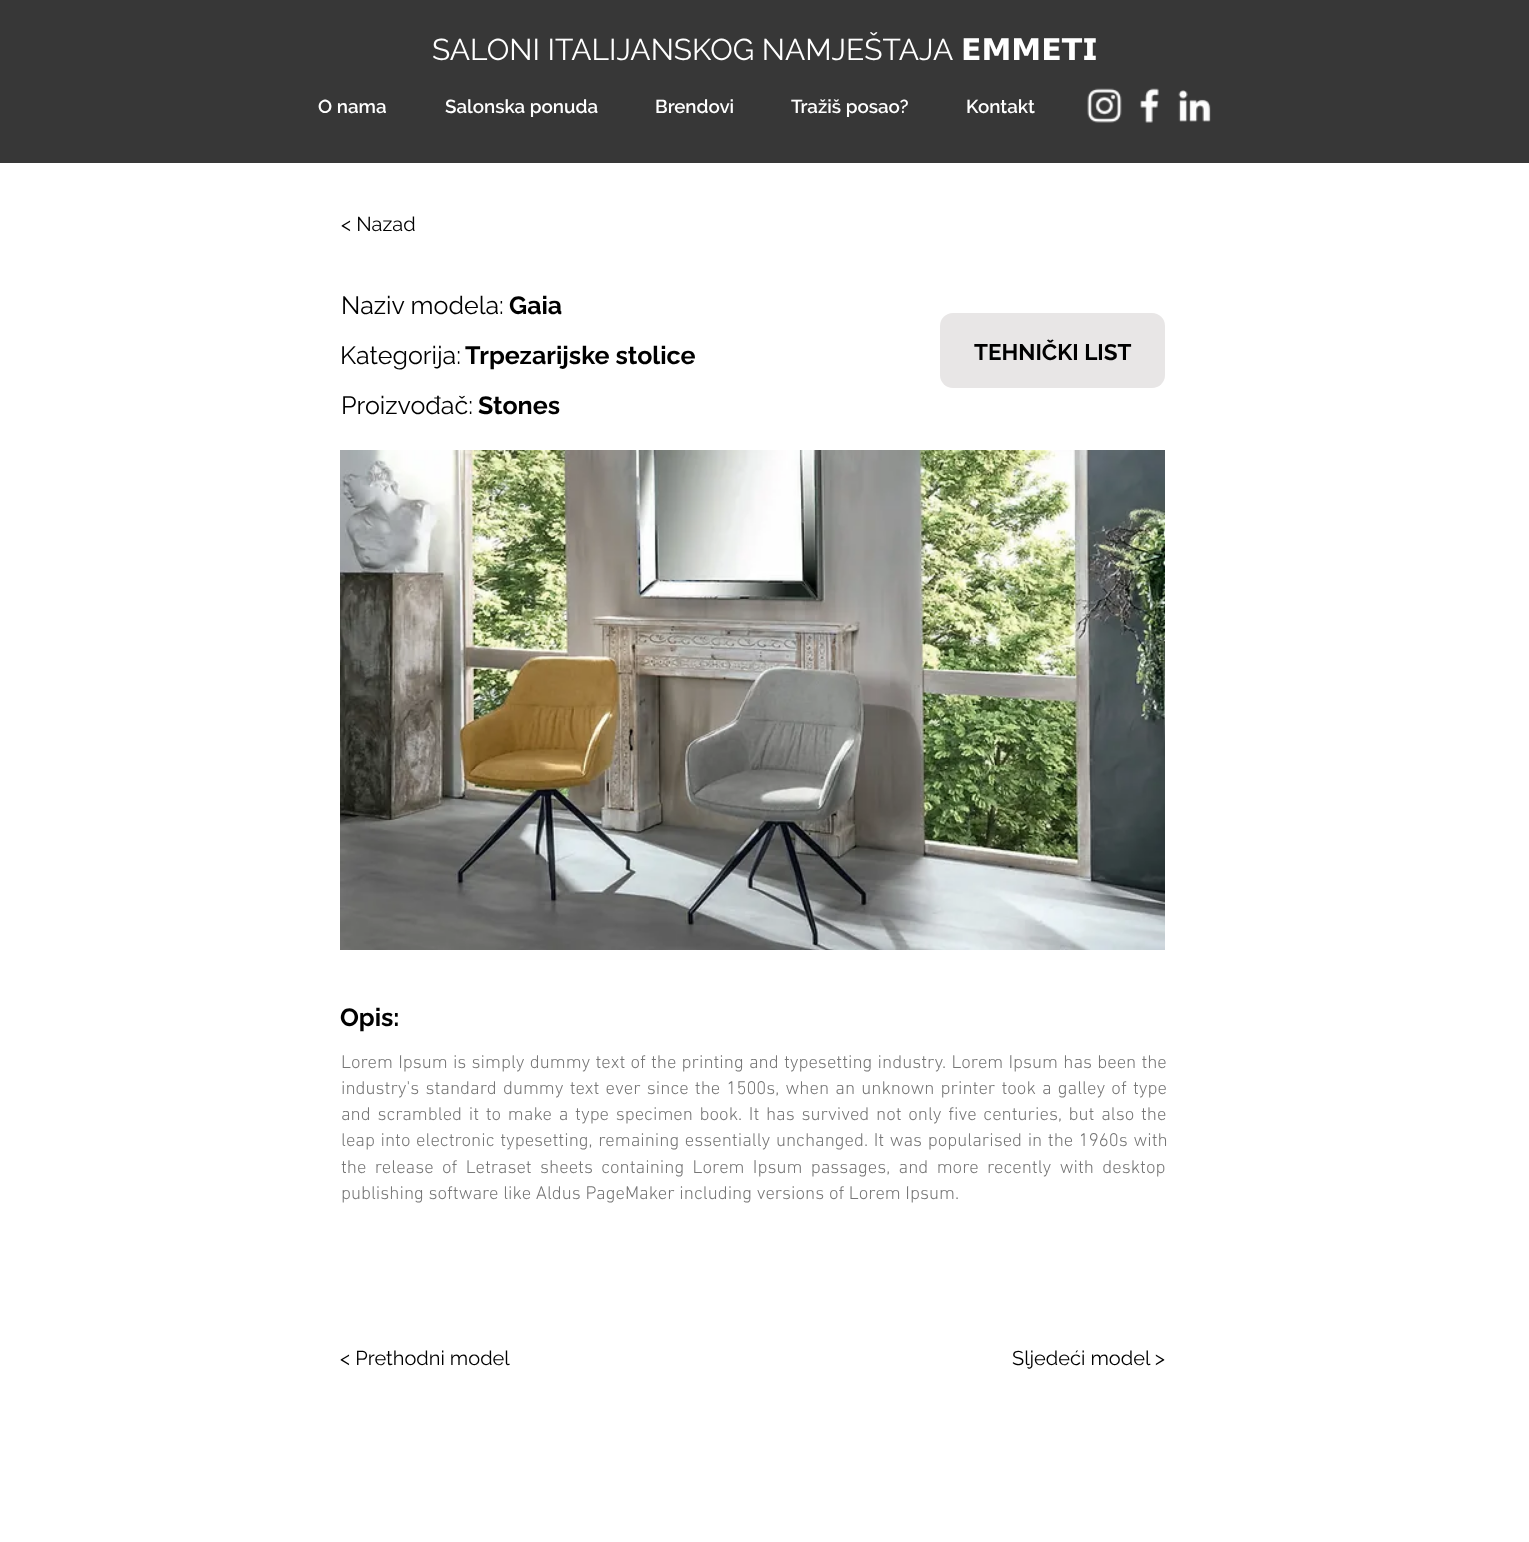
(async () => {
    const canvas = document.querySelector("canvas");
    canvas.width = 1529;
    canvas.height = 1542;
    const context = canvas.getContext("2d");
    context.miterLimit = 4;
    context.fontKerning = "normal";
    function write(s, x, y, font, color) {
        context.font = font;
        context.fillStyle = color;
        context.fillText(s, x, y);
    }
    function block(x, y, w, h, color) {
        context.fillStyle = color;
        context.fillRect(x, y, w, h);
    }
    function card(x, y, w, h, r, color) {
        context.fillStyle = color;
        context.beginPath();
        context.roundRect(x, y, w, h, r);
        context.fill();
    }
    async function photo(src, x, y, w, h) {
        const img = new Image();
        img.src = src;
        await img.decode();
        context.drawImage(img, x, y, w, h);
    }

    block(0, 0, 1529, 1542, "rgb(255, 255, 255)");
    block(0, 0, 1529, 163, "rgb(55, 55, 55)");
    write("SALONI ITALIJANSKOG NAMJEŠTAJA", 432, 60, "30px Raleway", "rgb(255, 255, 255)");
    write("𝗘𝗠𝗠𝗘𝗧𝗜", 961, 60, "bold 30px DejaVu Sans", "rgb(255, 255, 255)");
    write("O nama", 318, 113, "600 18.75px Raleway", "rgb(255, 255, 255)");
    write("Salonska ponuda", 445, 113, "600 18.75px Raleway", "rgb(255, 255, 255)");
    write("Brendovi", 655, 113, "600 18.75px Raleway", "rgb(255, 255, 255)");
    write("Tražiš posao?", 791, 113, "600 18.75px Raleway", "rgb(255, 255, 255)");
    write("Kontakt", 966, 113, "600 18.75px Raleway", "rgb(255, 255, 255)");
    await photo("media/1.png", 1087, 88, 35, 35);
    await photo("media/2.png", 1140, 88, 19, 35);
    await photo("media/3.png", 1178, 90, 33, 32);
    write("< Nazad", 341, 231, "20px Raleway", "rgb(0, 0, 0)");
    write("Naziv modela:", 341, 314, "25px Raleway", "rgb(0, 0, 0)");
    write("Gaia", 509, 314, "bold 25px Raleway", "rgb(0, 0, 0)");
    write("Kategorija:", 340, 364, "25px Raleway", "rgb(0, 0, 0)");
    write("Trpezarijske stolice", 465, 364, "bold 25px Raleway", "rgb(0, 0, 0)");
    card(940, 313, 225, 75, 13, "rgb(232, 230, 230)");
    write("TEHNIČKI LIST", 974, 360, "bold 22.5px Raleway", "rgb(0, 0, 0)");
    write("Proizvođač:", 341, 414, "25px Raleway", "rgb(0, 0, 0)");
    write("Stones", 478, 414, "bold 25px Raleway", "rgb(0, 0, 0)");
    await photo("media/4.png", 340, 450, 825, 500);
    write("Opis:", 340, 1026, "bold 25px Raleway", "rgb(0, 0, 0)");
    context.wordSpacing = "0.6px";
    write("Lorem Ipsum is simply dummy text of the printing and typesetting industry. Lorem Ipsum has been the", 341, 1068, "300 18.75px 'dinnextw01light'", "rgb(118, 118, 118)");
    context.wordSpacing = "1.6px";
    write("industry's standard dummy text ever since the 1500s, when an unknown printer took a galley of type", 341, 1094, "300 18.75px 'dinnextw01light'", "rgb(118, 118, 118)");
    context.wordSpacing = "2.1px";
    write("and scrambled it to make a type specimen book. It has survived not only five centuries, but also the", 341, 1120, "300 18.75px 'dinnextw01light'", "rgb(118, 118, 118)");
    context.wordSpacing = "1px";
    write("leap into electronic typesetting, remaining essentially unchanged. It was popularised in the 1960s with", 341, 1146, "300 18.75px 'dinnextw01light'", "rgb(118, 118, 118)");
    context.wordSpacing = "3.75px";
    write("the release of Letraset sheets containing Lorem Ipsum passages, and more recently with desktop", 341, 1173, "300 18.75px 'dinnextw01light'", "rgb(118, 118, 118)");
    context.wordSpacing = "0px";
    write("publishing software like Aldus PageMaker including versions of Lorem Ipsum.", 341, 1199, "300 18.75px 'dinnextw01light'", "rgb(118, 118, 118)");
    write("< Prethodni model", 340, 1365, "20px Raleway", "rgb(0, 0, 0)");
    write("Sljedeći model >", 1012, 1365, "20px Raleway", "rgb(0, 0, 0)");
})();
